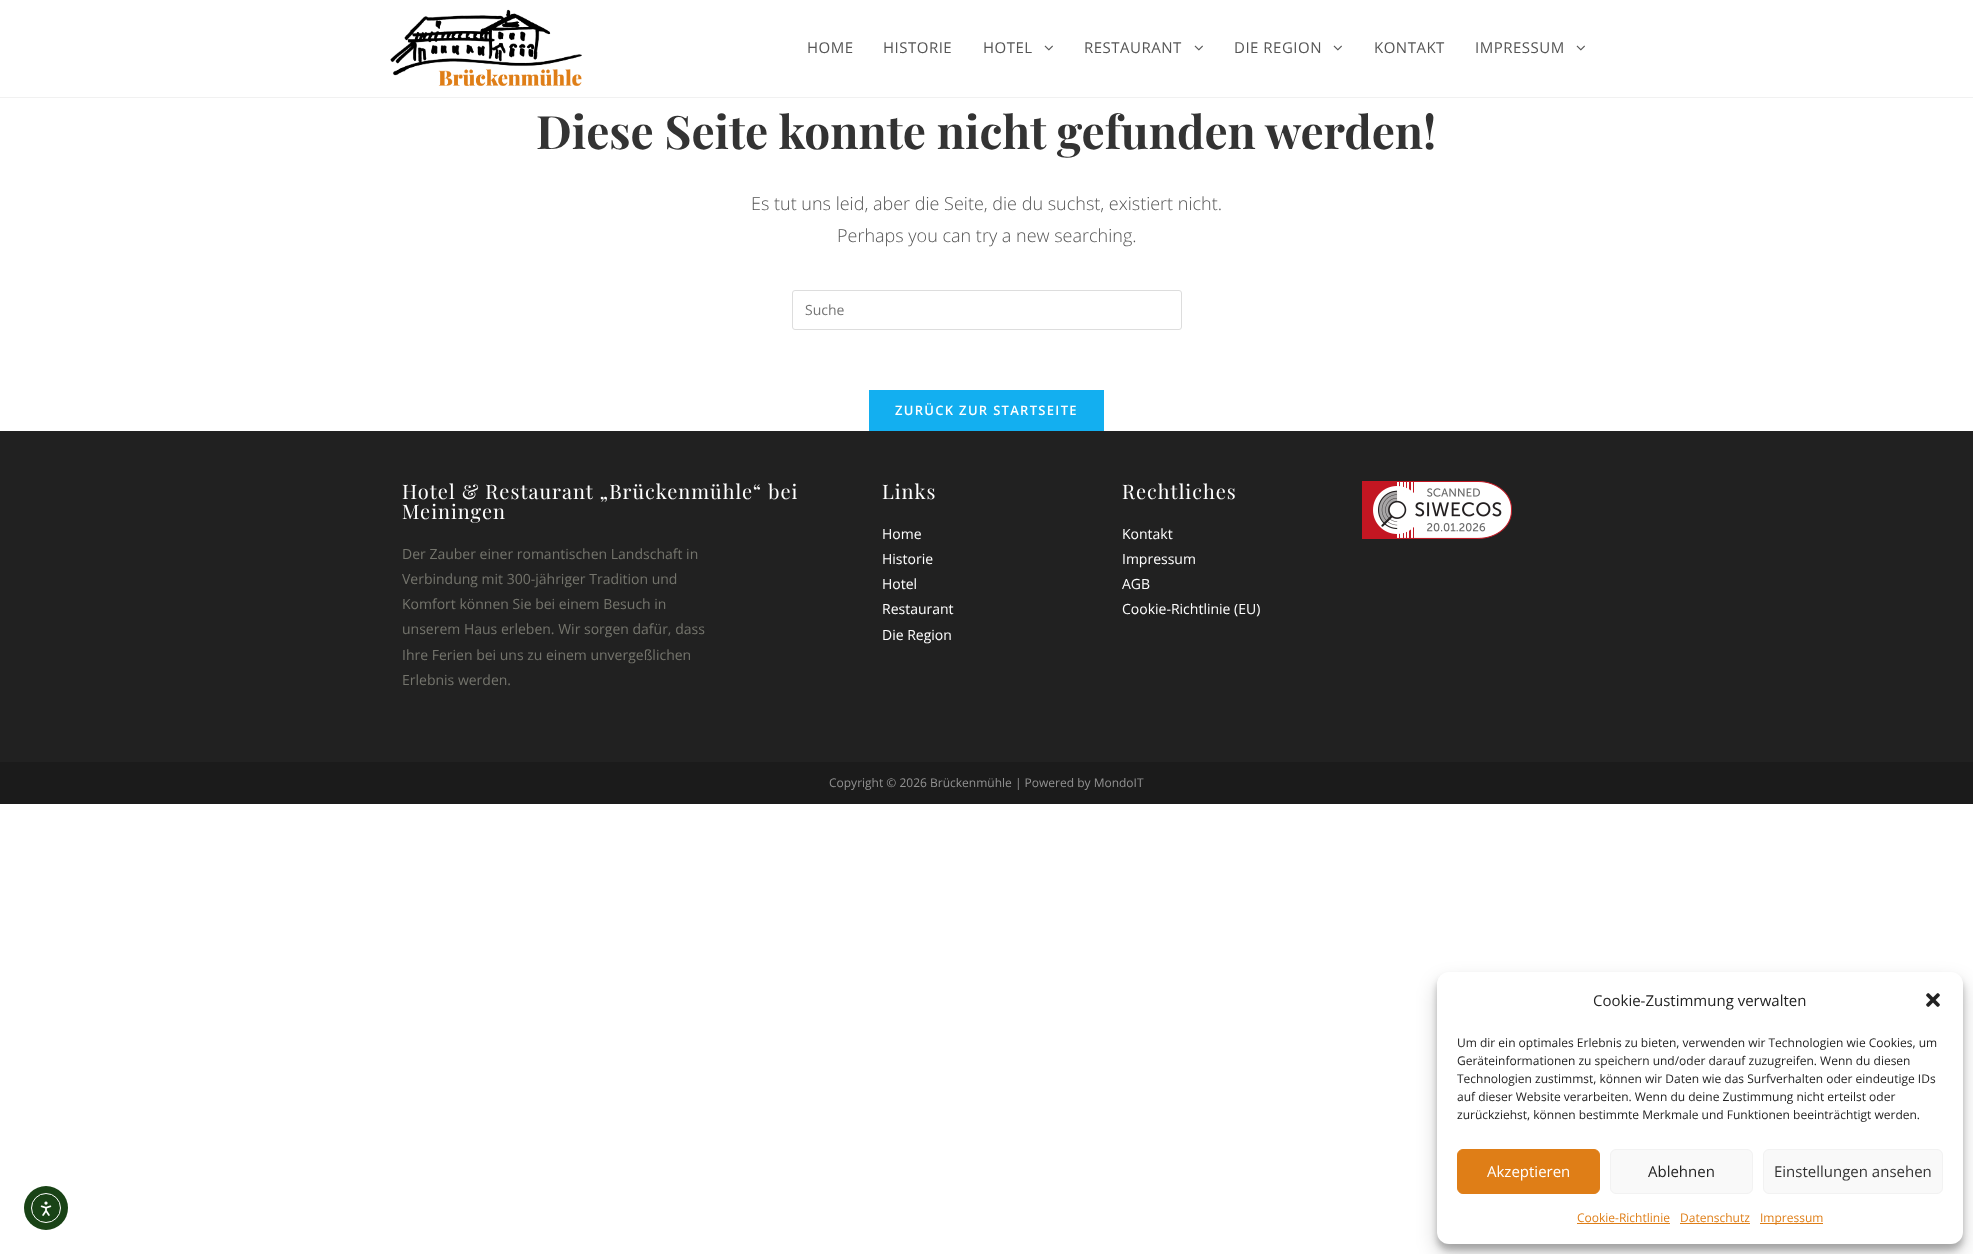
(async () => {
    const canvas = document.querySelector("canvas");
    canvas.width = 1973;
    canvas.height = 1254;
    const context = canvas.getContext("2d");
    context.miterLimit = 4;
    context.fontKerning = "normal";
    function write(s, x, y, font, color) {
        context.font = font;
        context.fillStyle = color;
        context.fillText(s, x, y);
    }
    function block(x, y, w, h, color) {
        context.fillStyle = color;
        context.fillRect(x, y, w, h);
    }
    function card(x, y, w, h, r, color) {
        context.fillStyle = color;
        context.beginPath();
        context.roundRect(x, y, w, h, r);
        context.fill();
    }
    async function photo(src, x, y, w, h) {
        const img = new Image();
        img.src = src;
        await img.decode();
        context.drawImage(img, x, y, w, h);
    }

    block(0, 0, 1973, 1254, "rgb(255, 255, 255)");
    block(0, 97, 1973, 1, "rgb(241, 241, 241)");
    await photo("media/1.png", 390, 9, 192, 77);
    context.letterSpacing = "0.5px";
    write("HOME", 807, 53, "15px Open Sans", "rgb(85, 85, 85)");
    write("HISTORIE", 883, 53, "15px Open Sans", "rgb(85, 85, 85)");
    write("HOTEL", 983, 53, "15px Open Sans", "rgb(85, 85, 85)");
    await photo("media/2.png", 1044, 45, 9, 6);
    write("RESTAURANT", 1084, 53, "15px Open Sans", "rgb(85, 85, 85)");
    await photo("media/2.png", 1194, 45, 9, 6);
    write("DIE REGION", 1234, 53, "15px Open Sans", "rgb(85, 85, 85)");
    await photo("media/2.png", 1333, 45, 9, 6);
    write("KONTAKT", 1374, 53, "15px Open Sans", "rgb(85, 85, 85)");
    write("IMPRESSUM", 1475, 53, "15px Open Sans", "rgb(85, 85, 85)");
    await photo("media/2.png", 1576, 45, 9, 6);
    context.letterSpacing = "0px";
    write("Diese Seite konnte nicht gefunden werden!", 536, 149, "bold 46px Playfair Display", "rgb(51, 51, 51)");
    write("Es tut uns leid, aber die Seite, die du suchst, existiert nicht.", 751, 210, "300 18px Open Sans", "rgb(85, 85, 85)");
    write("Perhaps you can try a new searching.", 837, 242, "300 18px Open Sans", "rgb(85, 85, 85)");
    context.beginPath();
    context.roundRect(792.5, 290.5, 389, 39, 2.5);
    context.strokeStyle = "rgb(221, 221, 221)";
    context.stroke();
    write("Suche", 805, 315, "14px Open Sans", "rgb(117, 117, 117)");
    block(869, 390, 235, 41, "rgb(19, 175, 240)");
    context.letterSpacing = "1.3px";
    write("ZURÜCK ZUR STARTSEITE", 895, 415, "600 13px Open Sans", "rgb(255, 255, 255)");
    block(0, 431, 1973, 331, "rgb(33, 33, 33)");
    context.letterSpacing = "1px";
    write("Hotel & Restaurant „Brückenmühle“ bei", 402, 499, "20px Playfair Display", "rgb(255, 255, 255)");
    write("Meiningen", 402, 519, "20px Playfair Display", "rgb(255, 255, 255)");
    context.letterSpacing = "0px";
    write("Der Zauber einer romantischen Landschaft in", 402, 559, "14px Open Sans", "rgb(117, 117, 109)");
    write("Verbindung mit 300-jähriger Tradition und", 402, 584, "14px Open Sans", "rgb(117, 117, 109)");
    write("Komfort können Sie bei einem Besuch in", 402, 609, "14px Open Sans", "rgb(117, 117, 109)");
    write("unserem Haus erleben. Wir sorgen dafür, dass", 402, 634, "14px Open Sans", "rgb(117, 117, 109)");
    write("Ihre Ferien bei uns zu einem unvergeßlichen", 402, 660, "14px Open Sans", "rgb(117, 117, 109)");
    write("Erlebnis werden.", 402, 685, "14px Open Sans", "rgb(117, 117, 109)");
    context.letterSpacing = "1px";
    write("Links", 882, 499, "20px Playfair Display", "rgb(255, 255, 255)");
    context.letterSpacing = "0px";
    write("Home", 882, 539, "14px Open Sans", "rgb(255, 255, 255)");
    write("Historie", 882, 564, "14px Open Sans", "rgb(255, 255, 255)");
    write("Hotel", 882, 589, "14px Open Sans", "rgb(255, 255, 255)");
    write("Restaurant", 882, 614, "14px Open Sans", "rgb(255, 255, 255)");
    write("Die Region", 882, 640, "14px Open Sans", "rgb(255, 255, 255)");
    context.letterSpacing = "1px";
    write("Rechtliches", 1122, 499, "20px Playfair Display", "rgb(255, 255, 255)");
    context.letterSpacing = "0px";
    write("Kontakt", 1122, 539, "14px Open Sans", "rgb(255, 255, 255)");
    write("Impressum", 1122, 564, "14px Open Sans", "rgb(255, 255, 255)");
    write("AGB", 1122, 589, "14px Open Sans", "rgb(255, 255, 255)");
    write("Cookie-Richtlinie (EU)", 1122, 614, "14px Open Sans", "rgb(255, 255, 255)");
    await photo("media/3.png", 1362, 481, 150, 58);
    block(0, 762, 1973, 42, "rgb(27, 27, 27)");
    write("Copyright © 2026 Brückenmühle | Powered by MondoIT", 829, 787, "12px Open Sans", "rgb(146, 146, 146)");
    context.fillStyle = "rgb(25, 67, 22)";
    context.beginPath();
    context.arc(46, 1208, 22, 0, Math.PI * 2);
    context.fill();
    context.beginPath();
    context.arc(46, 1208, 14.5, 0, Math.PI * 2);
    context.strokeStyle = "rgb(255, 255, 255)";
    context.stroke();
    await photo("media/4.png", 40, 1201, 12, 15);
    context.fillStyle = "rgba(0, 0, 0, 0.23)";
    context.filter = "blur(3px)";
    context.beginPath();
    context.roundRect(1437, 978, 526, 272, 12);
    context.fill();
    context.filter = "none";
    context.fillStyle = "rgba(0, 0, 0, 0.19)";
    context.filter = "blur(10px)";
    context.beginPath();
    context.roundRect(1437, 982, 526, 272, 12);
    context.fill();
    context.filter = "none";
    card(1437, 972, 526, 272, 12, "rgb(255, 255, 255)");
    write("Cookie-Zustimmung verwalten", 1593, 1006, "15px Open Sans", "rgb(34, 34, 34)");
    await photo("media/5.png", 1926, 993, 14, 14);
    write("Um dir ein optimales Erlebnis zu bieten, verwenden wir Technologien wie Cookies, um", 1457, 1047, "12px Open Sans", "rgb(34, 34, 34)");
    write("Geräteinformationen zu speichern und/oder darauf zuzugreifen. Wenn du diesen", 1457, 1065, "12px Open Sans", "rgb(34, 34, 34)");
    write("Technologien zustimmst, können wir Daten wie das Surfverhalten oder eindeutige IDs", 1457, 1083, "12px Open Sans", "rgb(34, 34, 34)");
    write("auf dieser Website verarbeiten. Wenn du deine Zustimmung nicht erteilst oder", 1457, 1101, "12px Open Sans", "rgb(34, 34, 34)");
    write("zurückziehst, können bestimmte Merkmale und Funktionen beeinträchtigt werden.", 1457, 1119, "12px Open Sans", "rgb(34, 34, 34)");
    context.fillStyle = "rgb(223, 126, 23)";
    context.beginPath();
    context.roundRect(1457.5, 1149.5, 142, 44, 5.5);
    context.fill();
    context.strokeStyle = "rgb(223, 126, 23)";
    context.stroke();
    write("Akzeptieren", 1487, 1177, "15px Open Sans", "rgb(255, 255, 255)");
    context.fillStyle = "rgb(249, 249, 249)";
    context.beginPath();
    context.roundRect(1610.5, 1149.5, 142, 44, 5.5);
    context.fill();
    context.strokeStyle = "rgb(242, 242, 242)";
    context.stroke();
    write("Ablehnen", 1648, 1177, "15px Open Sans", "rgb(34, 34, 34)");
    context.fillStyle = "rgb(249, 249, 249)";
    context.beginPath();
    context.roundRect(1763.5, 1149.5, 179, 44, 5.5);
    context.fill();
    context.stroke();
    write("Einstellungen ansehen", 1774, 1177, "15px Open Sans", "rgb(51, 51, 51)");
    write("Cookie-Richtlinie", 1577, 1222, "12px Open Sans", "rgb(223, 126, 23)");
    block(1577, 1223, 93, 1, "rgb(223, 126, 23)");
    write("Datenschutz", 1680, 1222, "12px Open Sans", "rgb(223, 126, 23)");
    block(1680, 1223, 70, 1, "rgb(223, 126, 23)");
    block(1760, 1223, 63, 1, "rgb(223, 126, 23)");
    write("Impressum", 1760, 1222, "12px Open Sans", "rgb(223, 126, 23)");
})();
